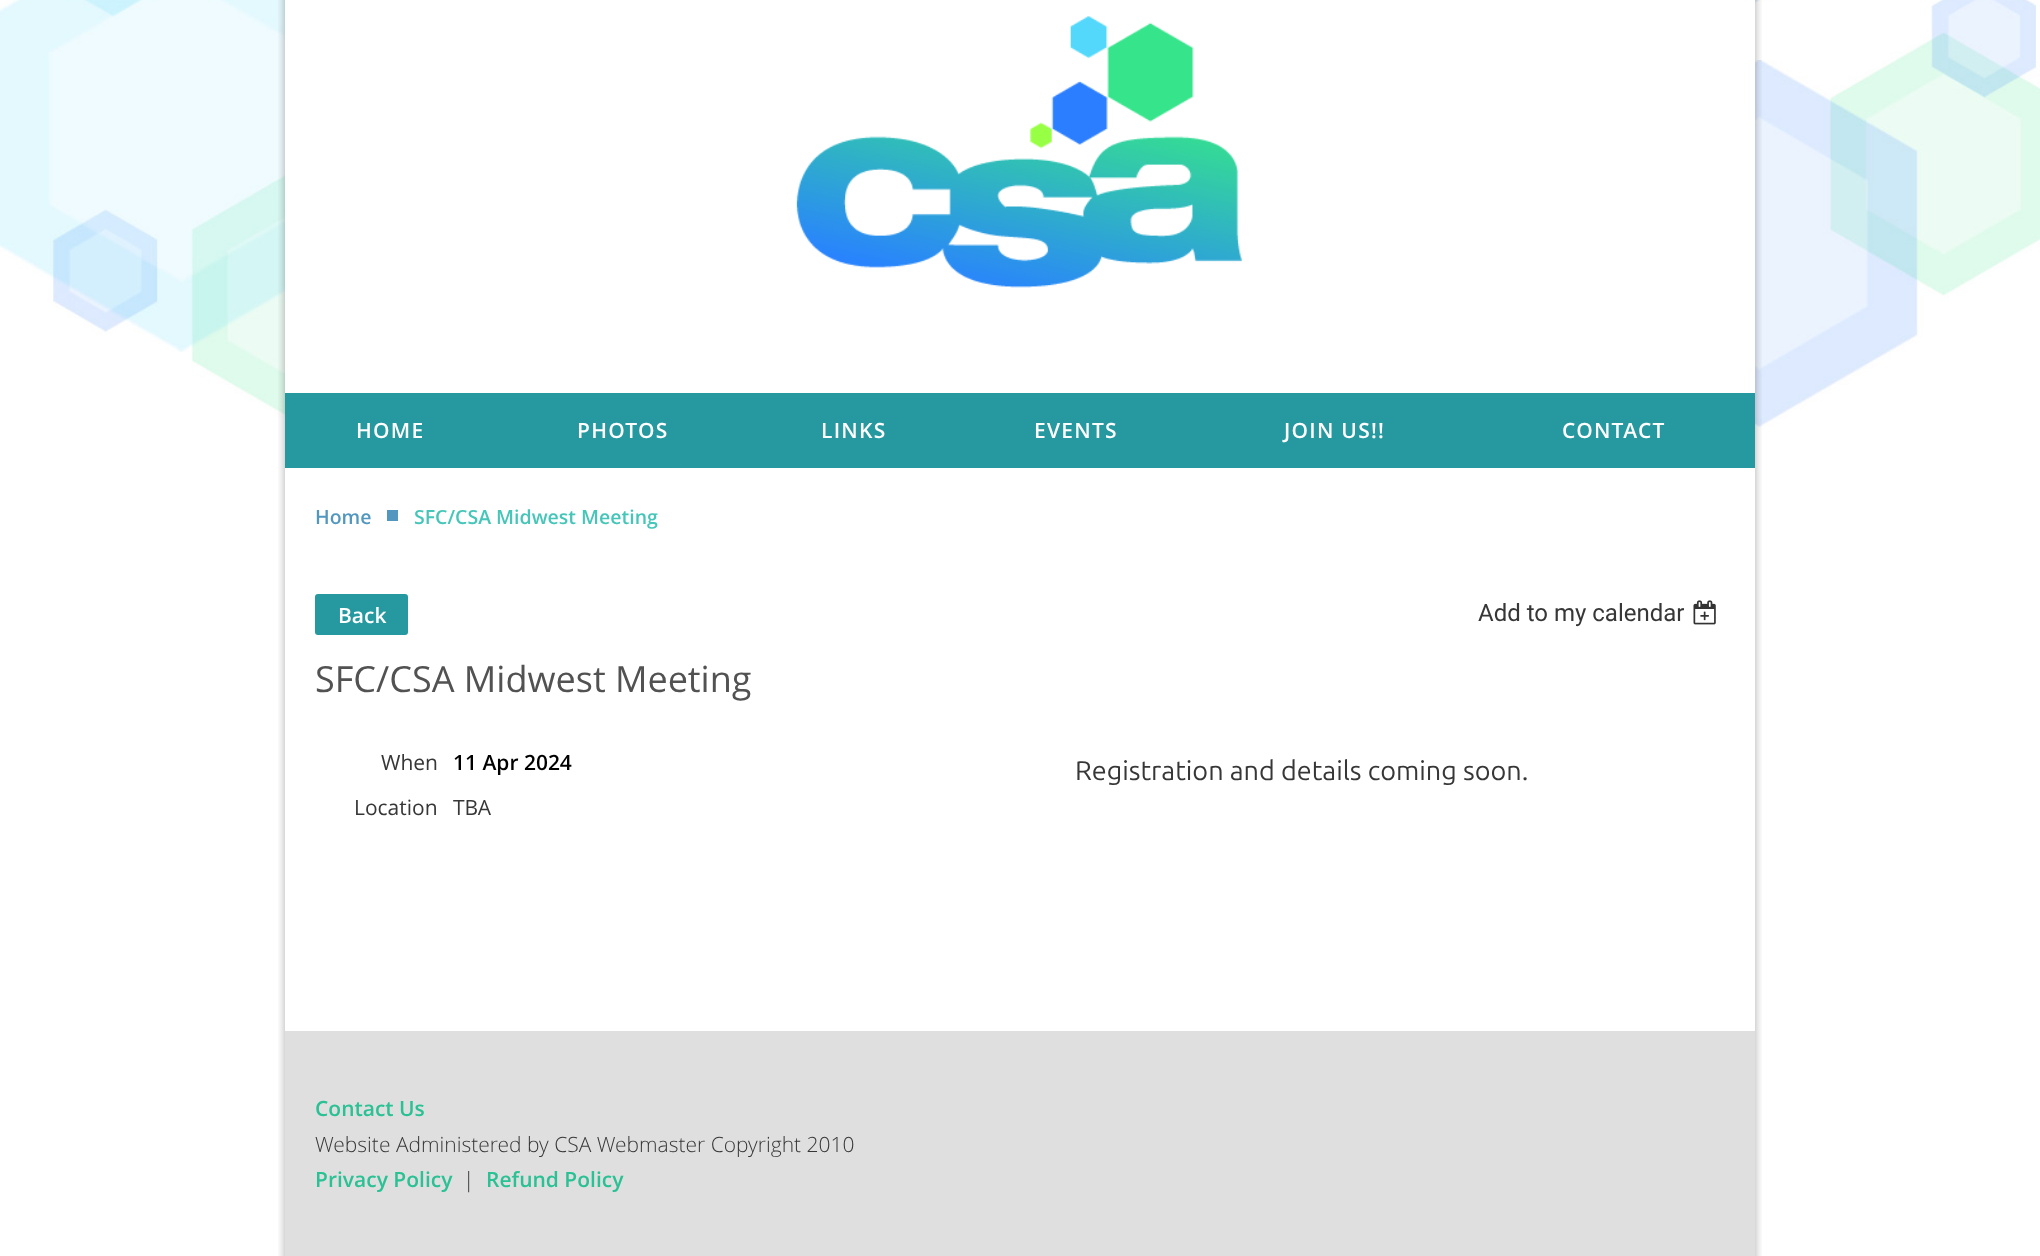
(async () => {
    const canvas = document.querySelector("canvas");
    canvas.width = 2040;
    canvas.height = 1256;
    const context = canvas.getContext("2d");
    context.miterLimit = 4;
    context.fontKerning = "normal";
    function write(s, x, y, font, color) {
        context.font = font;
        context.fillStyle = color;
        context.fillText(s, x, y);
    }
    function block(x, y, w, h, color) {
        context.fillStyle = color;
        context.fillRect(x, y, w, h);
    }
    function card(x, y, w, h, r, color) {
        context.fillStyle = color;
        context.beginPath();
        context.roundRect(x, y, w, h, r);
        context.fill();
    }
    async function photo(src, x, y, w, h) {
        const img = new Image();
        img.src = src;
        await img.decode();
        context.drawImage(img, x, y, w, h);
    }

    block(0, 0, 2040, 1256, "rgb(255, 255, 255)");
    await photo("media/1.png", 0, 0, 2040, 488);
    await photo("media/2.png", 278, 0, 1484, 393);
    block(285, 0, 1470, 393, "rgb(255, 255, 255)");
    await photo("media/3.png", 796, 16, 446, 272);
    await photo("media/4.png", 278, 393, 1484, 75);
    block(285, 393, 1470, 75, "rgb(38, 153, 160)");
    context.letterSpacing = "1.25px";
    write("HOME", 356, 438, "600 21px Open Sans", "rgb(255, 255, 255)");
    write("PHOTOS", 577, 438, "600 21px Open Sans", "rgb(255, 255, 255)");
    write("LINKS", 821, 438, "600 21px Open Sans", "rgb(255, 255, 255)");
    write("EVENTS", 1034, 438, "600 21px Open Sans", "rgb(255, 255, 255)");
    write("JOIN US!!", 1284, 438, "600 21px Open Sans", "rgb(255, 255, 255)");
    write("CONTACT", 1562, 438, "600 21px Open Sans", "rgb(255, 255, 255)");
    await photo("media/5.png", 278, 468, 1484, 563);
    block(683, 468, 69, 20, "rgb(255, 255, 255)");
    context.letterSpacing = "0px";
    write("Home", 315, 524, "600 19.5px Open Sans", "rgb(82, 151, 191)");
    block(387, 510, 11, 11, "rgb(82, 151, 191)");
    write("SFC/CSA Midwest Meeting", 414, 524, "600 19.5px Open Sans", "rgb(69, 198, 185)");
    card(315, 594, 93, 41, 3, "rgb(38, 153, 160)");
    write("Back", 338, 623, "600 21px Open Sans", "rgb(255, 255, 255)");
    write("Add to my calendar", 1478, 621, "24px Roboto", "rgb(55, 55, 55)");
    await photo("media/6.png", 1693, 600, 23, 25);
    write("SFC/CSA Midwest Meeting", 315, 692, "36px Open Sans", "rgb(82, 82, 82)");
    write("When", 381, 770, "21px Open Sans", "rgb(55, 55, 55)");
    write("11 Apr 2024", 453, 770, "600 21px Open Sans", "rgb(0, 0, 0)");
    write("Location", 354, 815, "21px Open Sans", "rgb(55, 55, 55)");
    write("TBA", 453, 815, "21px Open Sans", "rgb(55, 55, 55)");
    write("Registration and details coming soon.", 1075, 780, "27px Ubuntu", "rgb(55, 55, 55)");
    await photo("media/7.png", 278, 1030, 1484, 226);
    block(285, 1031, 1470, 225, "rgb(223, 223, 223)");
    write("Contact Us", 315, 1116, "600 21px Open Sans", "rgb(42, 193, 148)");
    write("Website Administered by CSA Webmaster Copyright 2010", 315, 1152, "300 21px Open Sans", "rgb(55, 55, 55)");
    write("Privacy Policy", 315, 1187, "600 21px Open Sans", "rgb(42, 193, 148)");
    write("|", 463, 1187, "300 21px Open Sans", "rgb(55, 55, 55)");
    write("Refund Policy", 486, 1187, "600 21px Open Sans", "rgb(42, 193, 148)");
})();
